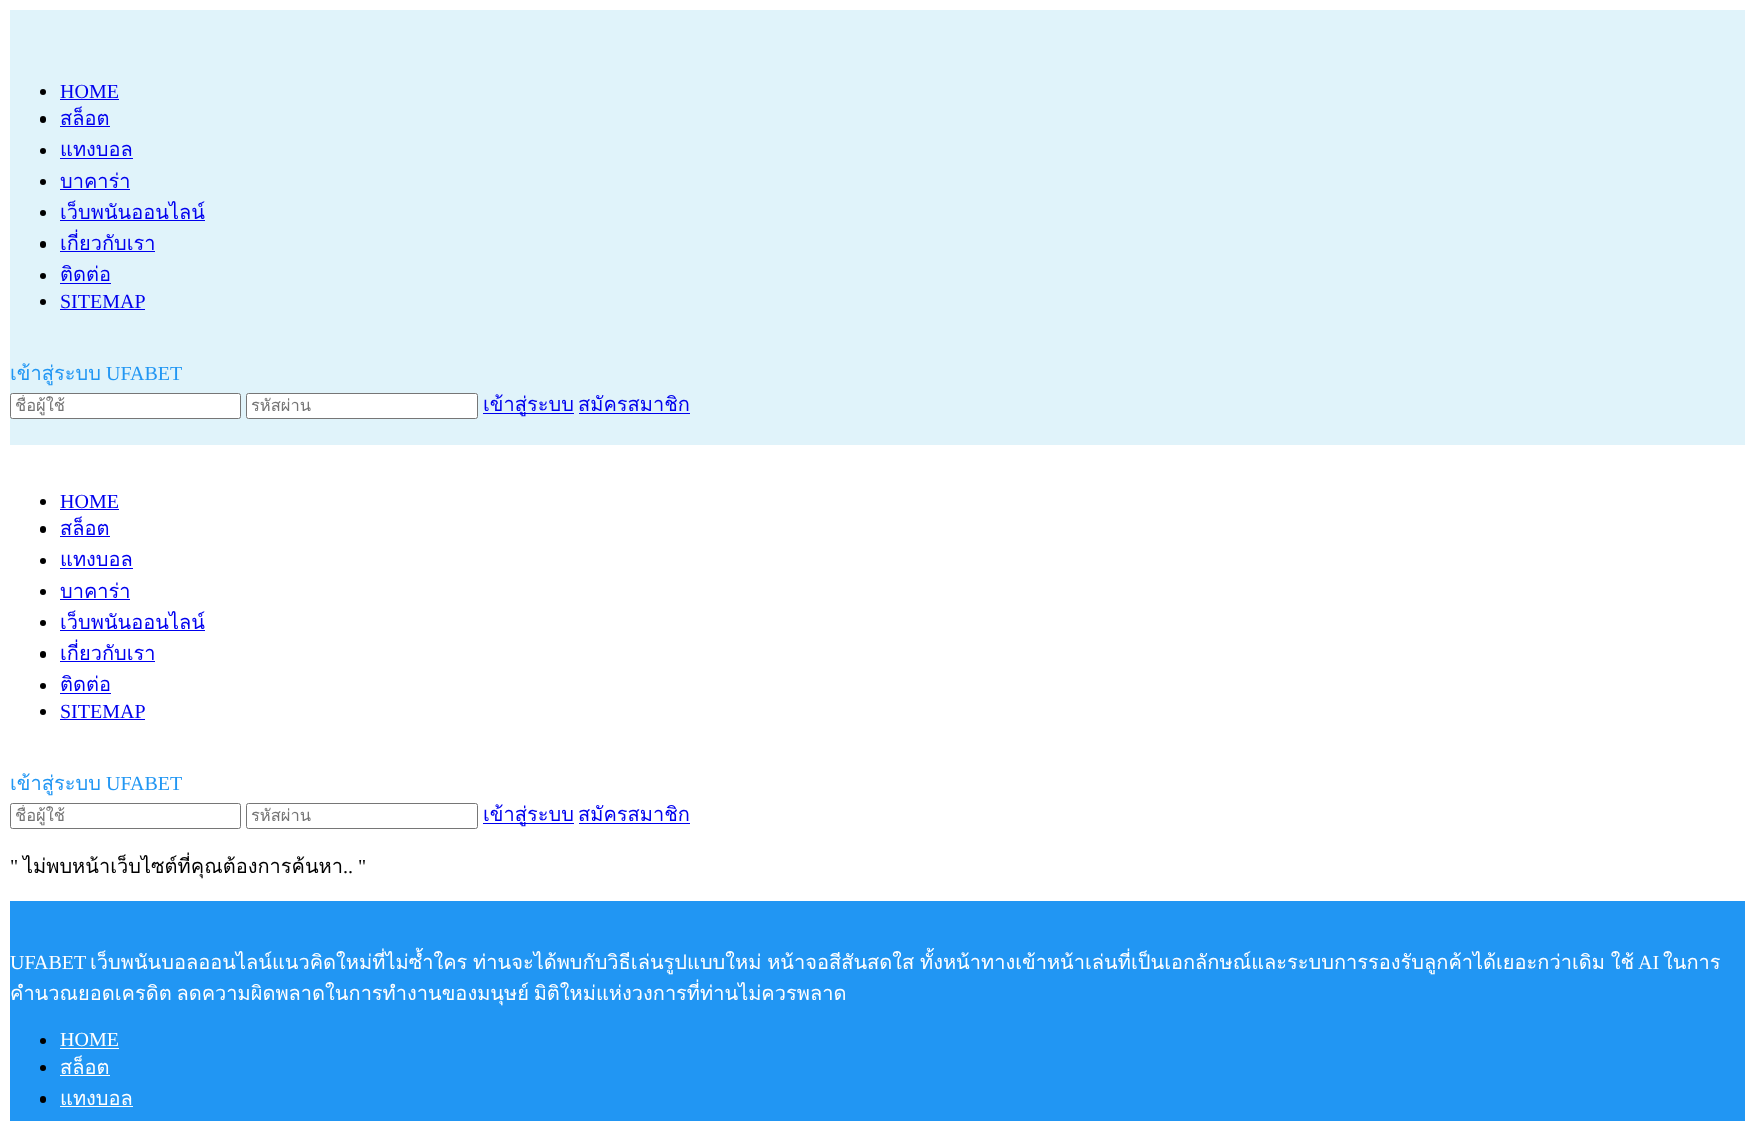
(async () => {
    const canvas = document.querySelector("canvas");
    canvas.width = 1755;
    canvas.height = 1121;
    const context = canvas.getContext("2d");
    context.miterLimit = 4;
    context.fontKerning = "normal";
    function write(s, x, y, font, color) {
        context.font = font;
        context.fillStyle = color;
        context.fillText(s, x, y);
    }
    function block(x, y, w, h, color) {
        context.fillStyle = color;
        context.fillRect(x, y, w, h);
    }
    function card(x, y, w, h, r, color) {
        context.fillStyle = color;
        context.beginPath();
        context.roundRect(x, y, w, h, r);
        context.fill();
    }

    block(0, 0, 1755, 1121, "rgb(255, 255, 255)");
    block(10, 10, 1735, 435, "rgb(224, 243, 250)");
    context.fillStyle = "rgb(0, 0, 0)";
    context.beginPath();
    context.arc(43, 92, 3, 0, Math.PI * 2);
    context.fill();
    write("HOME", 60, 98, "20px Liberation Serif", "rgb(0, 0, 238)");
    block(60, 99, 59, 1, "rgb(0, 0, 238)");
    card(40, 116, 6, 7, 3, "rgb(0, 0, 0)");
    write("สล็อต", 60, 125, "20px Loma", "rgb(0, 0, 238)");
    block(60, 126, 50, 1, "rgb(0, 0, 238)");
    context.fillStyle = "rgb(0, 0, 0)";
    context.beginPath();
    context.arc(43, 151, 3, 0, Math.PI * 2);
    context.fill();
    write("แทงบอล", 60, 156, "20px Loma", "rgb(0, 0, 238)");
    block(60, 158, 73, 1, "rgb(0, 0, 238)");
    context.fillStyle = "rgb(0, 0, 0)";
    context.beginPath();
    context.arc(43, 182, 3, 0, Math.PI * 2);
    context.fill();
    write("บาคาร่า", 60, 188, "20px Loma", "rgb(0, 0, 238)");
    block(60, 189, 70, 1, "rgb(0, 0, 238)");
    context.fillStyle = "rgb(0, 0, 0)";
    context.beginPath();
    context.arc(43, 213, 3, 0, Math.PI * 2);
    context.fill();
    write("เว็บพนันออนไลน์", 60, 219, "20px Loma", "rgb(0, 0, 238)");
    block(60, 220, 145, 1, "rgb(0, 0, 238)");
    card(40, 241, 6, 7, 3, "rgb(0, 0, 0)");
    write("เกี่ยวกับเรา", 60, 250, "20px Loma", "rgb(0, 0, 238)");
    block(60, 251, 95, 1, "rgb(0, 0, 238)");
    context.fillStyle = "rgb(0, 0, 0)";
    context.beginPath();
    context.arc(43, 276, 3, 0, Math.PI * 2);
    context.fill();
    write("ติดต่อ", 60, 281, "20px Loma", "rgb(0, 0, 238)");
    block(60, 283, 51, 1, "rgb(0, 0, 238)");
    context.fillStyle = "rgb(0, 0, 0)";
    context.beginPath();
    context.arc(43, 302, 3, 0, Math.PI * 2);
    context.fill();
    write("SITEMAP", 60, 308, "20px Liberation Serif", "rgb(0, 0, 238)");
    block(60, 309, 85, 1, "rgb(0, 0, 238)");
    write("เข้าสู่ระบบ", 10, 380, "20px Loma", "rgb(33, 150, 243)");
    write("UFABET", 106, 380, "20px Liberation Serif", "rgb(33, 150, 243)");
    context.fillStyle = "rgb(255, 255, 255)";
    context.beginPath();
    context.roundRect(10.5, 393.5, 230, 25, 2);
    context.fill();
    context.strokeStyle = "rgb(118, 118, 118)";
    context.stroke();
    context.save();
    context.beginPath();
    context.rect(15, 395, 221, 21);
    context.clip();
    write("ชื่อผู้ใช้", 15, 411, "16.5px Loma", "rgb(117, 117, 117)");
    context.restore();
    context.beginPath();
    context.roundRect(246.5, 393.5, 231, 25, 2);
    context.fill();
    context.stroke();
    write("รหัสผ่าน", 251, 411, "16.5px Loma", "rgb(117, 117, 117)");
    block(483, 413, 91, 1, "rgb(0, 0, 238)");
    write("เข้าสู่ระบบ", 483, 411, "20px Loma", "rgb(0, 0, 238)");
    write("สมัครสมาชิก", 578, 411, "20px Loma", "rgb(0, 0, 238)");
    block(579, 413, 111, 1, "rgb(0, 0, 238)");
    context.fillStyle = "rgb(0, 0, 0)";
    context.beginPath();
    context.arc(43, 502, 3, 0, Math.PI * 2);
    context.fill();
    write("HOME", 60, 508, "20px Liberation Serif", "rgb(0, 0, 238)");
    block(60, 509, 59, 1, "rgb(0, 0, 238)");
    card(40, 526, 6, 7, 3, "rgb(0, 0, 0)");
    write("สล็อต", 60, 535, "20px Loma", "rgb(0, 0, 238)");
    block(60, 536, 50, 1, "rgb(0, 0, 238)");
    context.fillStyle = "rgb(0, 0, 0)";
    context.beginPath();
    context.arc(43, 561, 3, 0, Math.PI * 2);
    context.fill();
    write("แทงบอล", 60, 566, "20px Loma", "rgb(0, 0, 238)");
    block(60, 568, 73, 1, "rgb(0, 0, 238)");
    context.fillStyle = "rgb(0, 0, 0)";
    context.beginPath();
    context.arc(43, 592, 3, 0, Math.PI * 2);
    context.fill();
    write("บาคาร่า", 60, 598, "20px Loma", "rgb(0, 0, 238)");
    block(60, 599, 70, 1, "rgb(0, 0, 238)");
    context.fillStyle = "rgb(0, 0, 0)";
    context.beginPath();
    context.arc(43, 623, 3, 0, Math.PI * 2);
    context.fill();
    write("เว็บพนันออนไลน์", 60, 629, "20px Loma", "rgb(0, 0, 238)");
    block(60, 630, 145, 1, "rgb(0, 0, 238)");
    card(40, 651, 6, 7, 3, "rgb(0, 0, 0)");
    write("เกี่ยวกับเรา", 60, 660, "20px Loma", "rgb(0, 0, 238)");
    block(60, 661, 95, 1, "rgb(0, 0, 238)");
    context.fillStyle = "rgb(0, 0, 0)";
    context.beginPath();
    context.arc(43, 686, 3, 0, Math.PI * 2);
    context.fill();
    write("ติดต่อ", 60, 691, "20px Loma", "rgb(0, 0, 238)");
    block(60, 693, 51, 1, "rgb(0, 0, 238)");
    context.fillStyle = "rgb(0, 0, 0)";
    context.beginPath();
    context.arc(43, 712, 3, 0, Math.PI * 2);
    context.fill();
    write("SITEMAP", 60, 718, "20px Liberation Serif", "rgb(0, 0, 238)");
    block(60, 719, 85, 1, "rgb(0, 0, 238)");
    write("เข้าสู่ระบบ", 10, 790, "20px Loma", "rgb(33, 150, 243)");
    write("UFABET", 106, 790, "20px Liberation Serif", "rgb(33, 150, 243)");
    context.beginPath();
    context.roundRect(10.5, 803.5, 230, 25, 2);
    context.stroke();
    context.save();
    context.beginPath();
    context.rect(15, 805, 221, 21);
    context.clip();
    write("ชื่อผู้ใช้", 15, 821, "16.5px Loma", "rgb(117, 117, 117)");
    context.restore();
    context.beginPath();
    context.roundRect(246.5, 803.5, 231, 25, 2);
    context.stroke();
    write("รหัสผ่าน", 251, 821, "16.5px Loma", "rgb(117, 117, 117)");
    block(483, 823, 91, 1, "rgb(0, 0, 238)");
    write("เข้าสู่ระบบ", 483, 821, "20px Loma", "rgb(0, 0, 238)");
    write("สมัครสมาชิก", 578, 821, "20px Loma", "rgb(0, 0, 238)");
    block(579, 823, 111, 1, "rgb(0, 0, 238)");
    write("\"", 10, 873, "20px Liberation Serif", "rgb(0, 0, 0)");
    write("ไม่พบหน้าเว็บไซต์ที่คุณต้องการค้นหา", 23, 873, "20px Loma", "rgb(0, 0, 0)");
    write(".. \"", 343, 873, "20px Liberation Serif", "rgb(0, 0, 0)");
    block(10, 901, 1735, 220, "rgb(33, 150, 243)");
    write("UFABET", 10, 969, "20px Liberation Serif", "rgb(255, 255, 255)");
    context.wordSpacing = "-1px";
    write("เว็บพนันบอลออนไลน์แนวคิดใหม่ที่ไม่ซ้ำใคร ท่านจะได้พบกับวิธีเล่นรูปแบบใหม่ หน้าจอสีสันสดใส ทั้งหน้าทางเข้าหน้าเล่นที่เป็นเอกลักษณ์และระบบการรองรับลูกค้าได้เยอะกว่าเดิม ใช้", 90, 969, "20px Loma", "rgb(255, 255, 255)");
    context.wordSpacing = "0px";
    write("AI", 1638, 969, "20px Liberation Serif", "rgb(255, 255, 255)");
    write("ในการ", 1663, 969, "20px Loma", "rgb(255, 255, 255)");
    context.wordSpacing = "-2px";
    write("คำนวณยอดเครดิต ลดความผิดพลาดในการทำงานของมนุษย์ มิติใหม่แห่งวงการที่ท่านไม่ควรพลาด", 10, 1000, "20px Loma", "rgb(255, 255, 255)");
    context.fillStyle = "rgb(0, 0, 0)";
    context.beginPath();
    context.arc(43, 1041, 3, 0, Math.PI * 2);
    context.fill();
    context.wordSpacing = "0px";
    write("HOME", 60, 1046, "20px Liberation Serif", "rgb(255, 255, 255)");
    block(60, 1048, 59, 1, "rgb(255, 255, 255)");
    context.fillStyle = "rgb(0, 0, 0)";
    context.beginPath();
    context.arc(43, 1068, 3, 0, Math.PI * 2);
    context.fill();
    write("สล็อต", 60, 1074, "20px Loma", "rgb(255, 255, 255)");
    block(60, 1075, 50, 1, "rgb(255, 255, 255)");
    card(40, 1096, 6, 7, 3, "rgb(0, 0, 0)");
    write("แทงบอล", 60, 1105, "20px Loma", "rgb(255, 255, 255)");
    block(60, 1106, 73, 1, "rgb(255, 255, 255)");
})();
